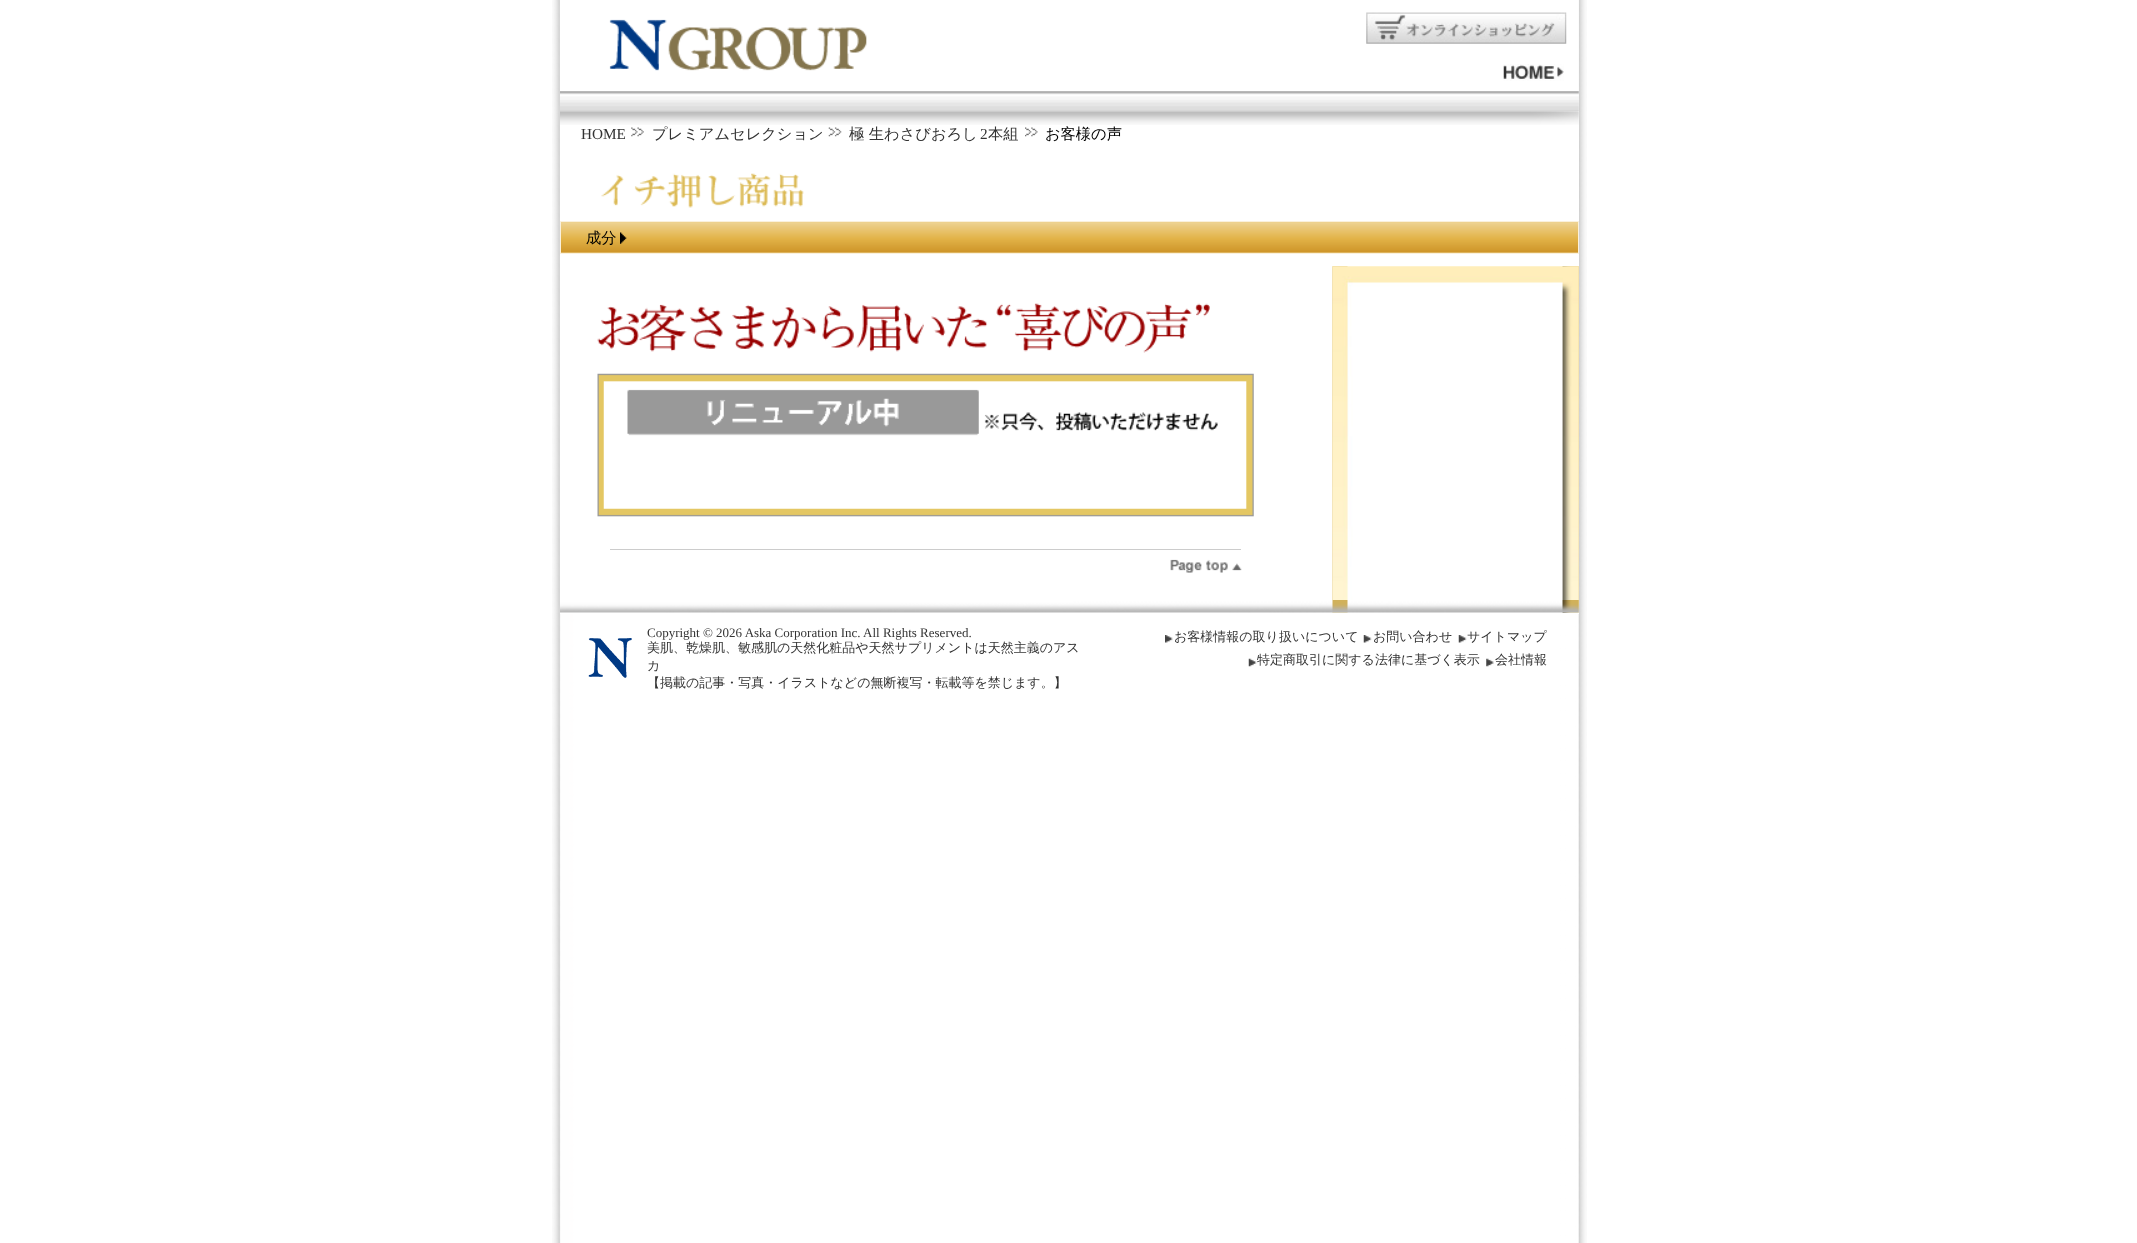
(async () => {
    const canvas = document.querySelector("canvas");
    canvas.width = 2137;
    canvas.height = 1243;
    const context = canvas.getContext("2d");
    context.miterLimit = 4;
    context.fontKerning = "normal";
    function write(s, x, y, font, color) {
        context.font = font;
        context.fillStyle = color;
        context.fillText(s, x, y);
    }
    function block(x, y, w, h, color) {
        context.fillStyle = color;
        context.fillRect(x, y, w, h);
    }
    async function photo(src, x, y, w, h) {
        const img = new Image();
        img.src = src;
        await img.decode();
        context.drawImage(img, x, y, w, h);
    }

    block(0, 0, 2137, 1243, "rgb(255, 255, 255)");
    await photo("media/1.png", 552, 0, 1035, 1243);
    await photo("media/2.png", 560, 0, 1019, 111);
    await photo("media/3.png", 609, 19, 258, 52);
    await photo("media/4.png", 1366, 12, 201, 32);
    await photo("media/5.png", 1503, 64, 61, 17);
    block(560, 111, 1019, 44, "rgb(255, 255, 255)");
    await photo("media/6.png", 560, 111, 1019, 14);
    write("HOME", 581, 139, "15.25px Liberation Serif", "rgb(51, 51, 51)");
    await photo("media/7.png", 631, 127, 13, 10);
    write("プレミアムセレクション", 652, 139, "500 15.25px WenQuanYi Zen Hei", "rgb(51, 51, 51)");
    await photo("media/8.png", 828, 127, 14, 10);
    write("極 生わさびおろし", 849, 139, "500 15.25px WenQuanYi Zen Hei", "rgb(51, 51, 51)");
    write("2", 980, 139, "15.25px Liberation Serif", "rgb(51, 51, 51)");
    write("本組", 988, 139, "500 15.25px WenQuanYi Zen Hei", "rgb(51, 51, 51)");
    await photo("media/9.png", 1025, 127, 13, 10);
    write("お客様の声", 1045, 139, "500 15.25px WenQuanYi Zen Hei", "rgb(0, 0, 0)");
    block(560, 155, 1019, 459, "rgb(255, 255, 255)");
    await photo("media/10.png", 1332, 266, 247, 347);
    await photo("media/11.png", 1332, 266, 247, 347);
    await photo("media/12.png", 560, 600, 1019, 13);
    await photo("media/13.png", 597, 303, 613, 50);
    await photo("media/14.png", 597, 373, 657, 144);
    await photo("media/15.png", 627, 389, 591, 47);
    block(610, 549, 631, 1, "rgb(204, 204, 204)");
    await photo("media/16.png", 1170, 559, 72, 14);
    await photo("media/17.png", 601, 173, 203, 35);
    block(561, 222, 1017, 31, "rgb(237, 209, 142)");
    await photo("media/18.png", 561, 224, 1017, 29);
    context.strokeStyle = "rgb(250, 241, 221)";
    context.strokeRect(560.5, 221.5, 1018, 32);
    await photo("media/19.png", 620, 232, 7, 12);
    write("成分", 586, 243, "500 15.25px WenQuanYi Zen Hei", "rgb(0, 0, 0)");
    write("Copyright © 2026 Aska Corporation Inc. All Rights Reserved.", 647, 637, "13px Liberation Serif", "rgb(51, 51, 51)");
    await photo("media/20.png", 588, 638, 44, 40);
    write("美肌、乾燥肌、敏感肌の天然化粧品や天然サプリメントは天然主義のアス", 647, 652, "500 13px WenQuanYi Zen Hei", "rgb(51, 51, 51)");
    write("カ", 647, 670, "500 13px WenQuanYi Zen Hei", "rgb(51, 51, 51)");
    write("【掲載の記事・写真・イラストなどの無断複写・転載等を禁じます。】", 647, 687, "500 13px WenQuanYi Zen Hei", "rgb(51, 51, 51)");
    await photo("media/21.png", 1165, 635, 8, 8);
    write("お客様情報の取り扱いについて", 1174, 641, "500 13px WenQuanYi Zen Hei", "rgb(51, 51, 51)");
    await photo("media/22.png", 1363, 635, 9, 8);
    write("お問い合わせ", 1373, 641, "500 13px WenQuanYi Zen Hei", "rgb(51, 51, 51)");
    await photo("media/23.png", 1458, 635, 9, 8);
    write("サイトマップ", 1467, 641, "500 13px WenQuanYi Zen Hei", "rgb(51, 51, 51)");
    await photo("media/24.png", 1248, 658, 9, 9);
    write("特定商取引に関する法律に基づく表示", 1257, 664, "500 13px WenQuanYi Zen Hei", "rgb(51, 51, 51)");
    await photo("media/25.png", 1486, 658, 8, 9);
    write("会社情報", 1495, 664, "500 13px WenQuanYi Zen Hei", "rgb(51, 51, 51)");
})();
